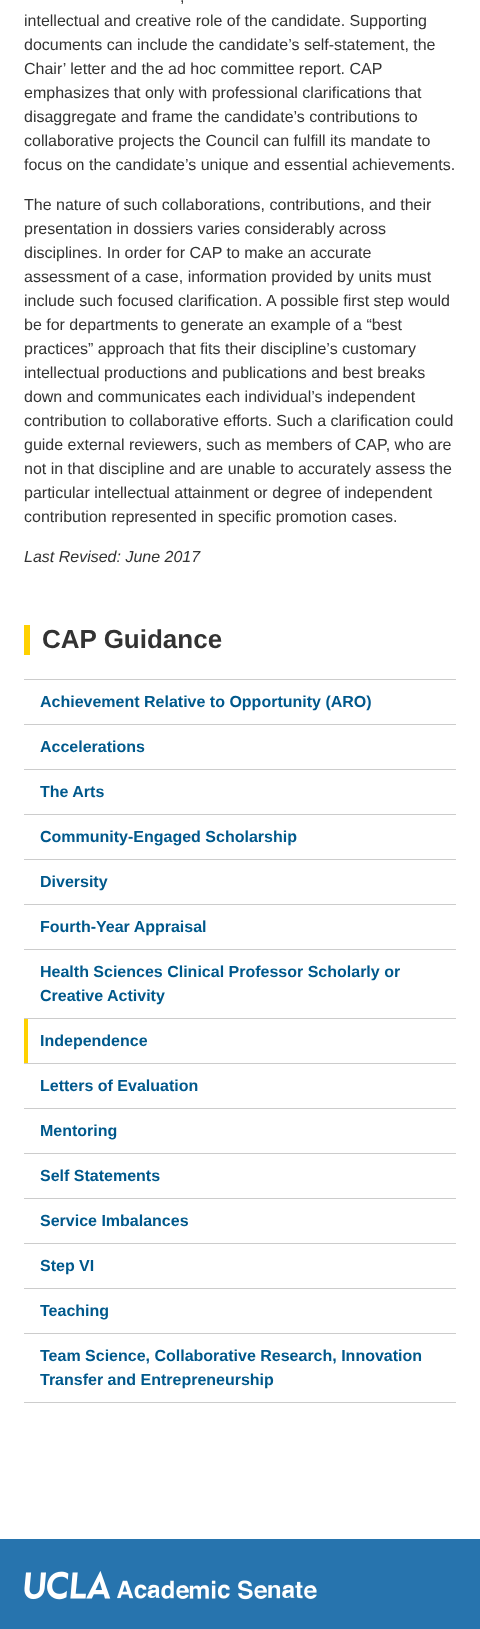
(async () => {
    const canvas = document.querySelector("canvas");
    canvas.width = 480;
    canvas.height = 1629;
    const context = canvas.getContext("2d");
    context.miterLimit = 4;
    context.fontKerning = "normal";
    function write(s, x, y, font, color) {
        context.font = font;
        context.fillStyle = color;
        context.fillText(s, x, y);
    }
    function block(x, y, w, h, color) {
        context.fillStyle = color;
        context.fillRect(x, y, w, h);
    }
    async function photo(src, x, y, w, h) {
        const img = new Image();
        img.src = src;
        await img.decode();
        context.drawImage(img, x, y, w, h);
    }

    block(0, 0, 480, 1629, "rgb(255, 255, 255)");
    write(",", 180, 2, "16px Liberation Sans", "rgb(51, 51, 51)");
    write("intellectual and creative role of the candidate. Supporting", 24, 26, "16px Liberation Sans", "rgb(51, 51, 51)");
    write("documents can include the candidate’s self-statement, the", 24, 50, "16px Liberation Sans", "rgb(51, 51, 51)");
    write("Chair’ letter and the ad hoc committee report. CAP", 24, 74, "16px Liberation Sans", "rgb(51, 51, 51)");
    write("emphasizes that only with professional clarifications that", 24, 98, "16px Liberation Sans", "rgb(51, 51, 51)");
    write("disaggregate and frame the candidate’s contributions to", 24, 122, "16px Liberation Sans", "rgb(51, 51, 51)");
    write("collaborative projects the Council can fulfill its mandate to", 24, 146, "16px Liberation Sans", "rgb(51, 51, 51)");
    write("focus on the candidate’s unique and essential achievements.", 24, 170, "16px Liberation Sans", "rgb(51, 51, 51)");
    write("The nature of such collaborations, contributions, and their", 24, 210, "16px Liberation Sans", "rgb(51, 51, 51)");
    write("presentation in dossiers varies considerably across", 24, 234, "16px Liberation Sans", "rgb(51, 51, 51)");
    write("disciplines. In order for CAP to make an accurate", 24, 258, "16px Liberation Sans", "rgb(51, 51, 51)");
    write("assessment of a case, information provided by units must", 24, 282, "16px Liberation Sans", "rgb(51, 51, 51)");
    write("include such focused clarification. A possible first step would", 24, 306, "16px Liberation Sans", "rgb(51, 51, 51)");
    write("be for departments to generate an example of a “best", 24, 330, "16px Liberation Sans", "rgb(51, 51, 51)");
    write("practices” approach that fits their discipline’s customary", 24, 354, "16px Liberation Sans", "rgb(51, 51, 51)");
    write("intellectual productions and publications and best breaks", 24, 378, "16px Liberation Sans", "rgb(51, 51, 51)");
    write("down and communicates each individual’s independent", 24, 402, "16px Liberation Sans", "rgb(51, 51, 51)");
    write("contribution to collaborative efforts. Such a clarification could", 24, 426, "16px Liberation Sans", "rgb(51, 51, 51)");
    write("guide external reviewers, such as members of CAP, who are", 24, 450, "16px Liberation Sans", "rgb(51, 51, 51)");
    write("not in that discipline and are unable to accurately assess the", 24, 474, "16px Liberation Sans", "rgb(51, 51, 51)");
    write("particular intellectual attainment or degree of independent", 24, 498, "16px Liberation Sans", "rgb(51, 51, 51)");
    write("contribution represented in specific promotion cases.", 24, 522, "16px Liberation Sans", "rgb(51, 51, 51)");
    write("Last Revised: June 2017", 24, 562, "italic 16px Liberation Sans", "rgb(51, 51, 51)");
    block(24, 625, 6, 30, "rgb(255, 209, 0)");
    write("CAP Guidance", 42, 648, "bold 26px Liberation Sans", "rgb(51, 51, 51)");
    block(24, 679, 432, 1, "rgb(204, 204, 204)");
    write("Achievement Relative to Opportunity (ARO)", 40, 707, "bold 16px Liberation Sans", "rgb(0, 89, 140)");
    block(24, 724, 432, 1, "rgb(204, 204, 204)");
    write("Accelerations", 40, 752, "bold 16px Liberation Sans", "rgb(0, 89, 140)");
    block(24, 769, 432, 1, "rgb(204, 204, 204)");
    write("The Arts", 40, 797, "bold 16px Liberation Sans", "rgb(0, 89, 140)");
    block(24, 814, 432, 1, "rgb(204, 204, 204)");
    write("Community-Engaged Scholarship", 40, 842, "bold 16px Liberation Sans", "rgb(0, 89, 140)");
    block(24, 859, 432, 1, "rgb(204, 204, 204)");
    write("Diversity", 40, 887, "bold 16px Liberation Sans", "rgb(0, 89, 140)");
    block(24, 904, 432, 1, "rgb(204, 204, 204)");
    write("Fourth-Year Appraisal", 40, 932, "bold 16px Liberation Sans", "rgb(0, 89, 140)");
    block(24, 949, 432, 1, "rgb(204, 204, 204)");
    write("Health Sciences Clinical Professor Scholarly or", 40, 977, "bold 16px Liberation Sans", "rgb(0, 89, 140)");
    write("Creative Activity", 40, 1001, "bold 16px Liberation Sans", "rgb(0, 89, 140)");
    block(24, 1018, 432, 1, "rgb(204, 204, 204)");
    block(24, 1019, 4, 44, "rgb(255, 209, 0)");
    write("Independence", 40, 1046, "bold 16px Liberation Sans", "rgb(0, 89, 140)");
    block(24, 1063, 432, 1, "rgb(204, 204, 204)");
    write("Letters of Evaluation", 40, 1091, "bold 16px Liberation Sans", "rgb(0, 89, 140)");
    block(24, 1108, 432, 1, "rgb(204, 204, 204)");
    write("Mentoring", 40, 1136, "bold 16px Liberation Sans", "rgb(0, 89, 140)");
    block(24, 1153, 432, 1, "rgb(204, 204, 204)");
    write("Self Statements", 40, 1181, "bold 16px Liberation Sans", "rgb(0, 89, 140)");
    block(24, 1198, 432, 1, "rgb(204, 204, 204)");
    write("Service Imbalances", 40, 1226, "bold 16px Liberation Sans", "rgb(0, 89, 140)");
    block(24, 1243, 432, 1, "rgb(204, 204, 204)");
    write("Step VI", 40, 1271, "bold 16px Liberation Sans", "rgb(0, 89, 140)");
    block(24, 1288, 432, 1, "rgb(204, 204, 204)");
    write("Teaching", 40, 1316, "bold 16px Liberation Sans", "rgb(0, 89, 140)");
    block(24, 1333, 432, 1, "rgb(204, 204, 204)");
    block(24, 1402, 432, 1, "rgb(204, 204, 204)");
    write("Team Science, Collaborative Research, Innovation", 40, 1361, "bold 16px Liberation Sans", "rgb(0, 89, 140)");
    write("Transfer and Entrepreneurship", 40, 1385, "bold 16px Liberation Sans", "rgb(0, 89, 140)");
    block(0, 1539, 480, 90, "rgb(39, 116, 174)");
    await photo("media/1.png", 24, 1571, 293, 29);
})();
